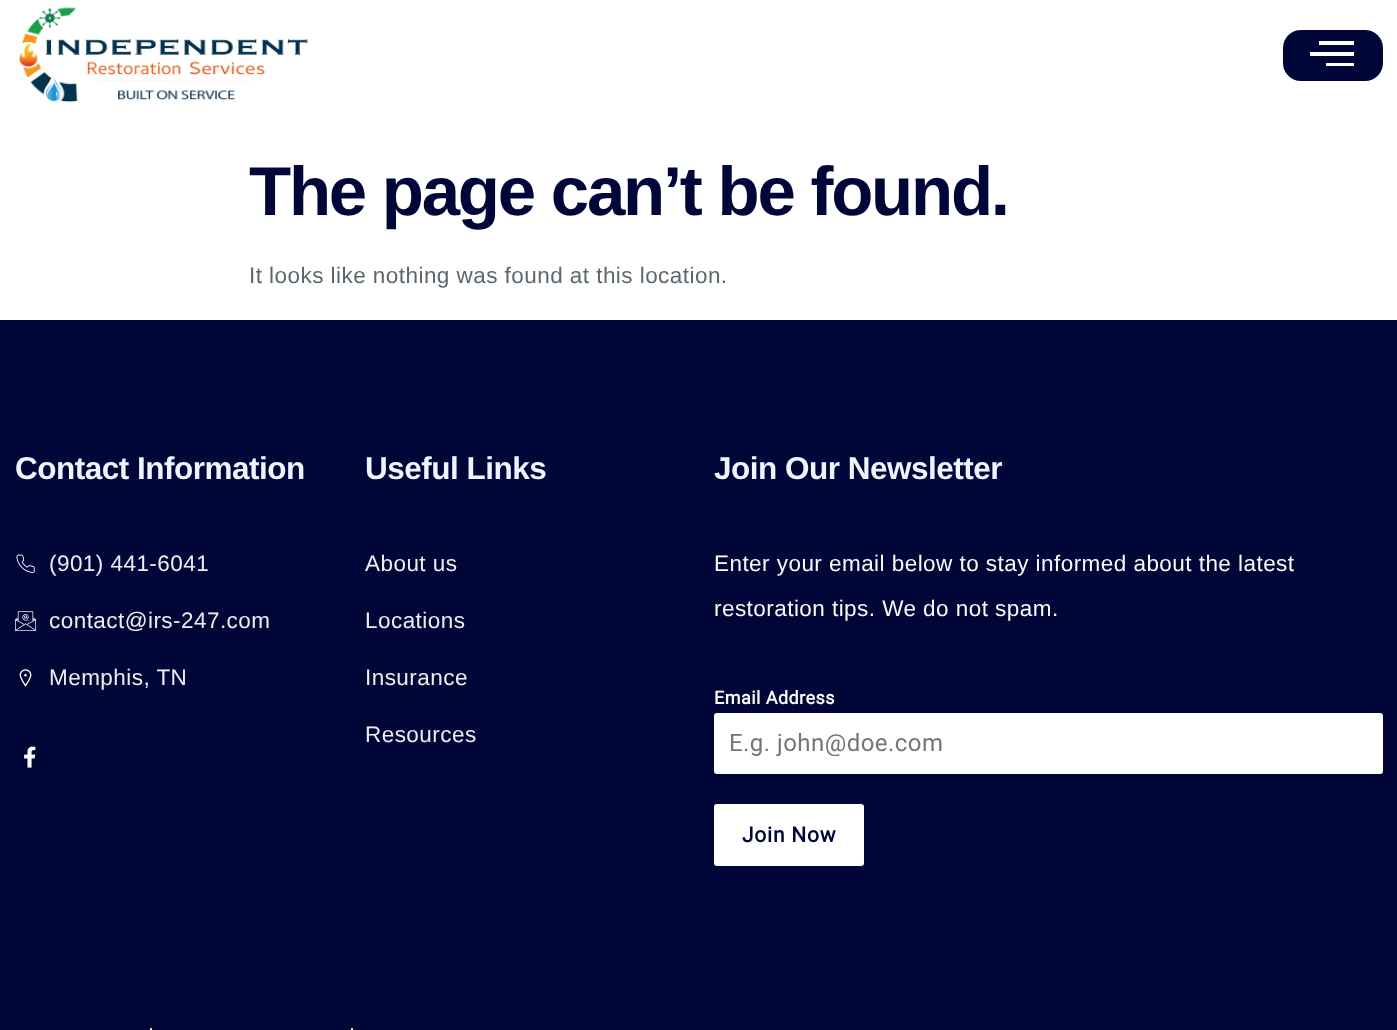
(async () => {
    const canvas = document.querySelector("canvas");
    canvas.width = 1397;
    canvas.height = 1030;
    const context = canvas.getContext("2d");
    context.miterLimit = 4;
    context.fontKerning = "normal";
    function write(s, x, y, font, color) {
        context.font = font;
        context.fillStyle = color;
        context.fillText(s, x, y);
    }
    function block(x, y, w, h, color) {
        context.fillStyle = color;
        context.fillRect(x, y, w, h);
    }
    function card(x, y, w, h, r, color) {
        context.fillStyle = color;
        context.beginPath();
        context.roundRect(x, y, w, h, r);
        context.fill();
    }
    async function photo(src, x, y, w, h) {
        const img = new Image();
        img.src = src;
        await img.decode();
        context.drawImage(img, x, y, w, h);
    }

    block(0, 0, 1397, 1030, "rgb(255, 255, 255)");
    await photo("media/1.png", 18, 7, 290, 96);
    card(1283, 30, 100, 51, 18, "rgb(0, 6, 56)");
    context.fillStyle = "rgb(255, 255, 255)";
    context.beginPath();
    context.moveTo(1310, 56);
    context.lineTo(1354, 56);
    context.lineTo(1354, 52);
    context.lineTo(1310, 52);
    context.closePath();
    context.moveTo(1326, 66);
    context.lineTo(1354, 66);
    context.lineTo(1354, 63);
    context.lineTo(1326, 63);
    context.closePath();
    context.moveTo(1319, 41);
    context.lineTo(1319, 45);
    context.lineTo(1354, 45);
    context.lineTo(1354, 41);
    context.closePath();
    context.fill();
    context.letterSpacing = "-2.25px";
    write("The page can’t be found.", 249, 215, "bold 69px Liberation Sans", "rgb(0, 6, 56)");
    context.letterSpacing = "0.45px";
    write("It looks like nothing was found at this location.", 249, 283, "22.5px Liberation Sans", "rgb(92, 103, 109)");
    block(0, 320, 1397, 710, "rgb(0, 6, 56)");
    context.letterSpacing = "-0.5px";
    write("Contact Information", 15, 479, "bold 31.5px Liberation Sans", "rgb(237, 245, 255)");
    await photo("media/2.png", 16, 554, 19, 19);
    context.letterSpacing = "0.45px";
    write("(901) 441-6041", 49, 571, "22.5px Liberation Sans", "rgb(238, 238, 238)");
    await photo("media/3.png", 15, 611, 21, 20);
    write("contact@irs-247.com", 49, 628, "22.5px Liberation Sans", "rgb(238, 238, 238)");
    await photo("media/4.png", 19, 669, 13, 18);
    write("Memphis, TN", 49, 685, "22.5px Liberation Sans", "rgb(238, 238, 238)");
    await photo("media/5.png", 24, 746, 12, 22);
    context.letterSpacing = "-0.5px";
    write("Useful Links", 365, 479, "bold 31.5px Liberation Sans", "rgb(237, 245, 255)");
    context.letterSpacing = "0.45px";
    write("About us", 365, 571, "22.5px Liberation Sans", "rgb(238, 238, 238)");
    write("Locations", 365, 628, "22.5px Liberation Sans", "rgb(238, 238, 238)");
    write("Insurance", 365, 685, "22.5px Liberation Sans", "rgb(238, 238, 238)");
    write("Resources", 365, 742, "22.5px Liberation Sans", "rgb(238, 238, 238)");
    context.letterSpacing = "-0.5px";
    write("Join Our Newsletter", 714, 479, "bold 31.5px Liberation Sans", "rgb(237, 245, 255)");
    context.letterSpacing = "0.45px";
    write("Enter your email below to stay informed about the latest", 714, 571, "22.5px Liberation Sans", "rgb(250, 250, 250)");
    write("restoration tips. We do not spam.", 714, 616, "22.5px Liberation Sans", "rgb(250, 250, 250)");
    write("Email Address", 714, 704, "bold 18px Roboto", "rgb(250, 250, 250)");
    card(714, 713, 669, 61, 3, "rgb(255, 255, 255)");
    context.save();
    context.beginPath();
    context.rect(729, 728, 639, 28);
    context.clip();
    write("E.g. john@doe.com", 729, 751, "24px Roboto", "rgb(117, 117, 117)");
    context.restore();
    card(714, 804, 150, 62, 3, "rgb(255, 255, 255)");
    context.letterSpacing = "0.75px";
    write("Join Now", 742, 842, "bold 21px Roboto", "rgb(0, 6, 56)");
    block(150, 1028, 2, 2, "rgb(221, 221, 221)");
    block(351, 1028, 2, 2, "rgb(221, 221, 221)");
})();
